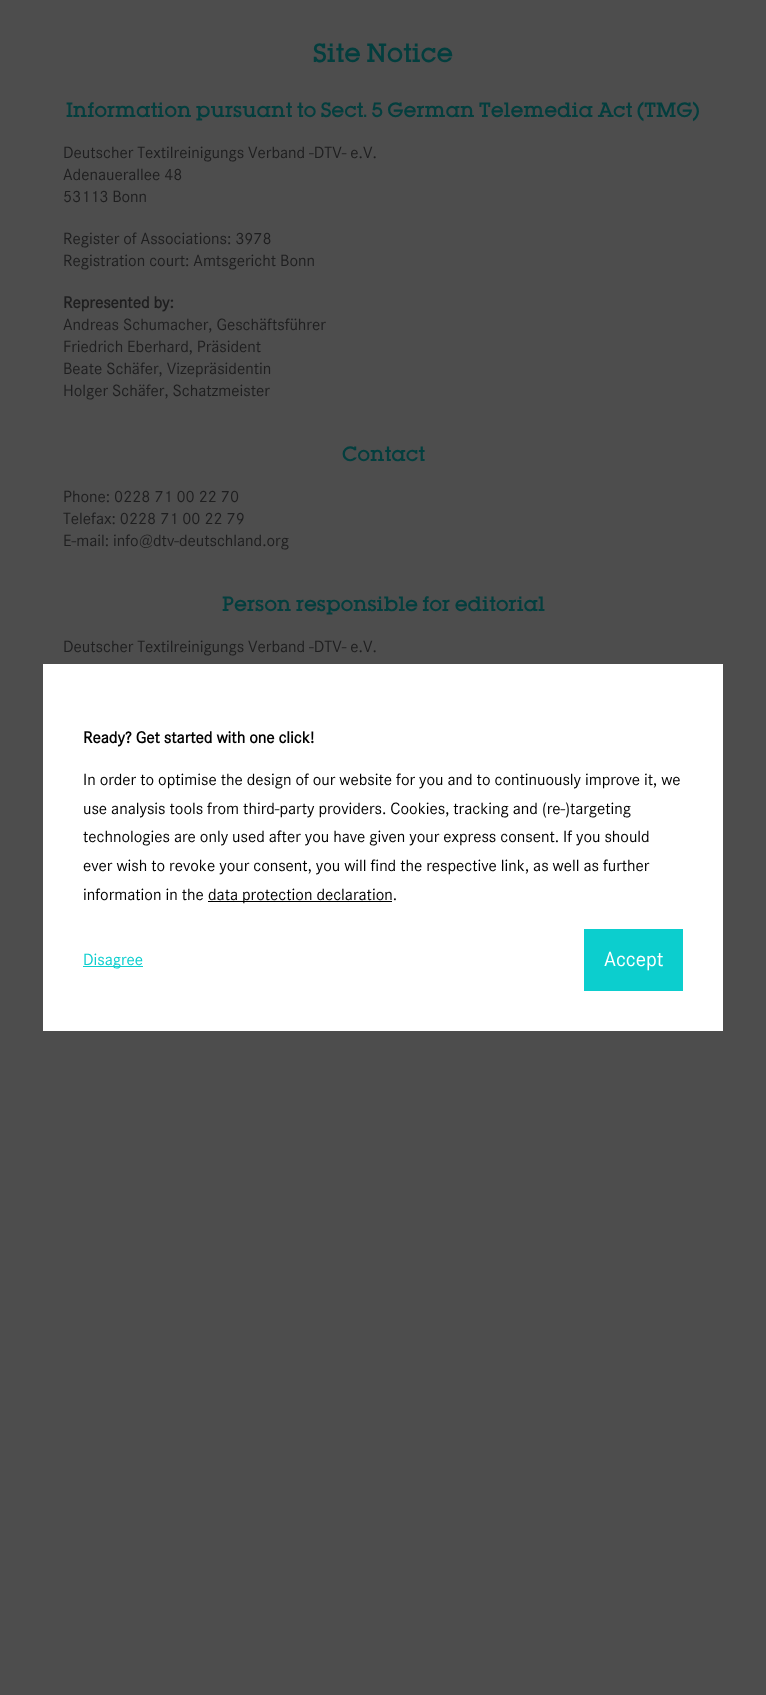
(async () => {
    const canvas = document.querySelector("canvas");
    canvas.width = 766;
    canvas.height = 1695;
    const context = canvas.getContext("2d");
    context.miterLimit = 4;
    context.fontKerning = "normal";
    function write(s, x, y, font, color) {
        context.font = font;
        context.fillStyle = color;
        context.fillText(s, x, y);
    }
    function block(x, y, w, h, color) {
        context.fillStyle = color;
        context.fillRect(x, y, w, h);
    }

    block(0, 0, 766, 1695, "rgb(77, 77, 77)");
    write("Site Notice", 313, 62, "500 23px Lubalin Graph", "rgb(3, 62, 62)");
    write("Information pursuant to Sect. 5 German Telemedia Act (TMG)", 66, 117, "500 18px Lubalin Graph", "rgb(3, 62, 62)");
    write("Deutscher Textilreinigungs Verband -DTV- e.V.", 63, 158, "16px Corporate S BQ", "rgb(30, 30, 31)");
    write("Adenauerallee 48", 63, 180, "16px Corporate S BQ", "rgb(30, 30, 31)");
    write("53113 Bonn", 63, 202, "16px Corporate S BQ", "rgb(30, 30, 31)");
    write("Register of Associations: 3978", 63, 244, "16px Corporate S BQ", "rgb(30, 30, 31)");
    write("Registration court: Amtsgericht Bonn", 63, 266, "16px Corporate S BQ", "rgb(30, 30, 31)");
    write("Represented by:", 63, 308, "bold 16px Corporate S BQ", "rgb(30, 30, 31)");
    write("Andreas Schumacher, Geschäftsführer", 63, 330, "16px Corporate S BQ", "rgb(30, 30, 31)");
    write("Friedrich Eberhard, Präsident", 63, 352, "16px Corporate S BQ", "rgb(30, 30, 31)");
    write("Beate Schäfer, Vizepräsidentin", 63, 374, "16px Corporate S BQ", "rgb(30, 30, 31)");
    write("Holger Schäfer, Schatzmeister", 63, 396, "16px Corporate S BQ", "rgb(30, 30, 31)");
    write("Contact", 342, 461, "500 18px Lubalin Graph", "rgb(3, 62, 62)");
    write("Phone: 0228 71 00 22 70", 63, 502, "16px Corporate S BQ", "rgb(30, 30, 31)");
    write("Telefax: 0228 71 00 22 79", 63, 524, "16px Corporate S BQ", "rgb(30, 30, 31)");
    write("E-mail: info@dtv-deutschland.org", 63, 546, "16px Corporate S BQ", "rgb(30, 30, 31)");
    write("Person responsible for editorial", 222, 611, "500 18px Lubalin Graph", "rgb(3, 62, 62)");
    write("Deutscher Textilreinigungs Verband -DTV- e.V.", 63, 652, "16px Corporate S BQ", "rgb(30, 30, 31)");
    block(43, 664, 680, 367, "rgb(255, 255, 255)");
    write("Ready? Get started with one click!", 83, 743, "bold 16px Corporate S BQ", "rgb(0, 0, 0)");
    write("In order to optimise the design of our website for you and to continuously improve it, we", 83, 785, "16px Corporate S BQ", "rgb(0, 0, 0)");
    write("use analysis tools from third-party providers. Cookies, tracking and (re-)targeting", 83, 814, "16px Corporate S BQ", "rgb(0, 0, 0)");
    write("technologies are only used after you have given your express consent. If you should", 83, 842, "16px Corporate S BQ", "rgb(0, 0, 0)");
    write("ever wish to revoke your consent, you will find the respective link, as well as further", 83, 871, "16px Corporate S BQ", "rgb(0, 0, 0)");
    write("information in the", 83, 900, "16px Corporate S BQ", "rgb(0, 0, 0)");
    block(208, 901, 184, 1, "rgb(0, 0, 0)");
    write("data protection declaration.", 208, 900, "16px Corporate S BQ", "rgb(0, 0, 0)");
    block(83, 966, 60, 1, "rgb(12, 206, 206)");
    write("Disagree", 83, 965, "16px Corporate S BQ", "rgb(12, 206, 206)");
    block(584, 929, 99, 62, "rgb(12, 206, 206)");
    write("Accept", 604, 966, "20px Corporate S BQ", "rgb(255, 255, 255)");
})();
